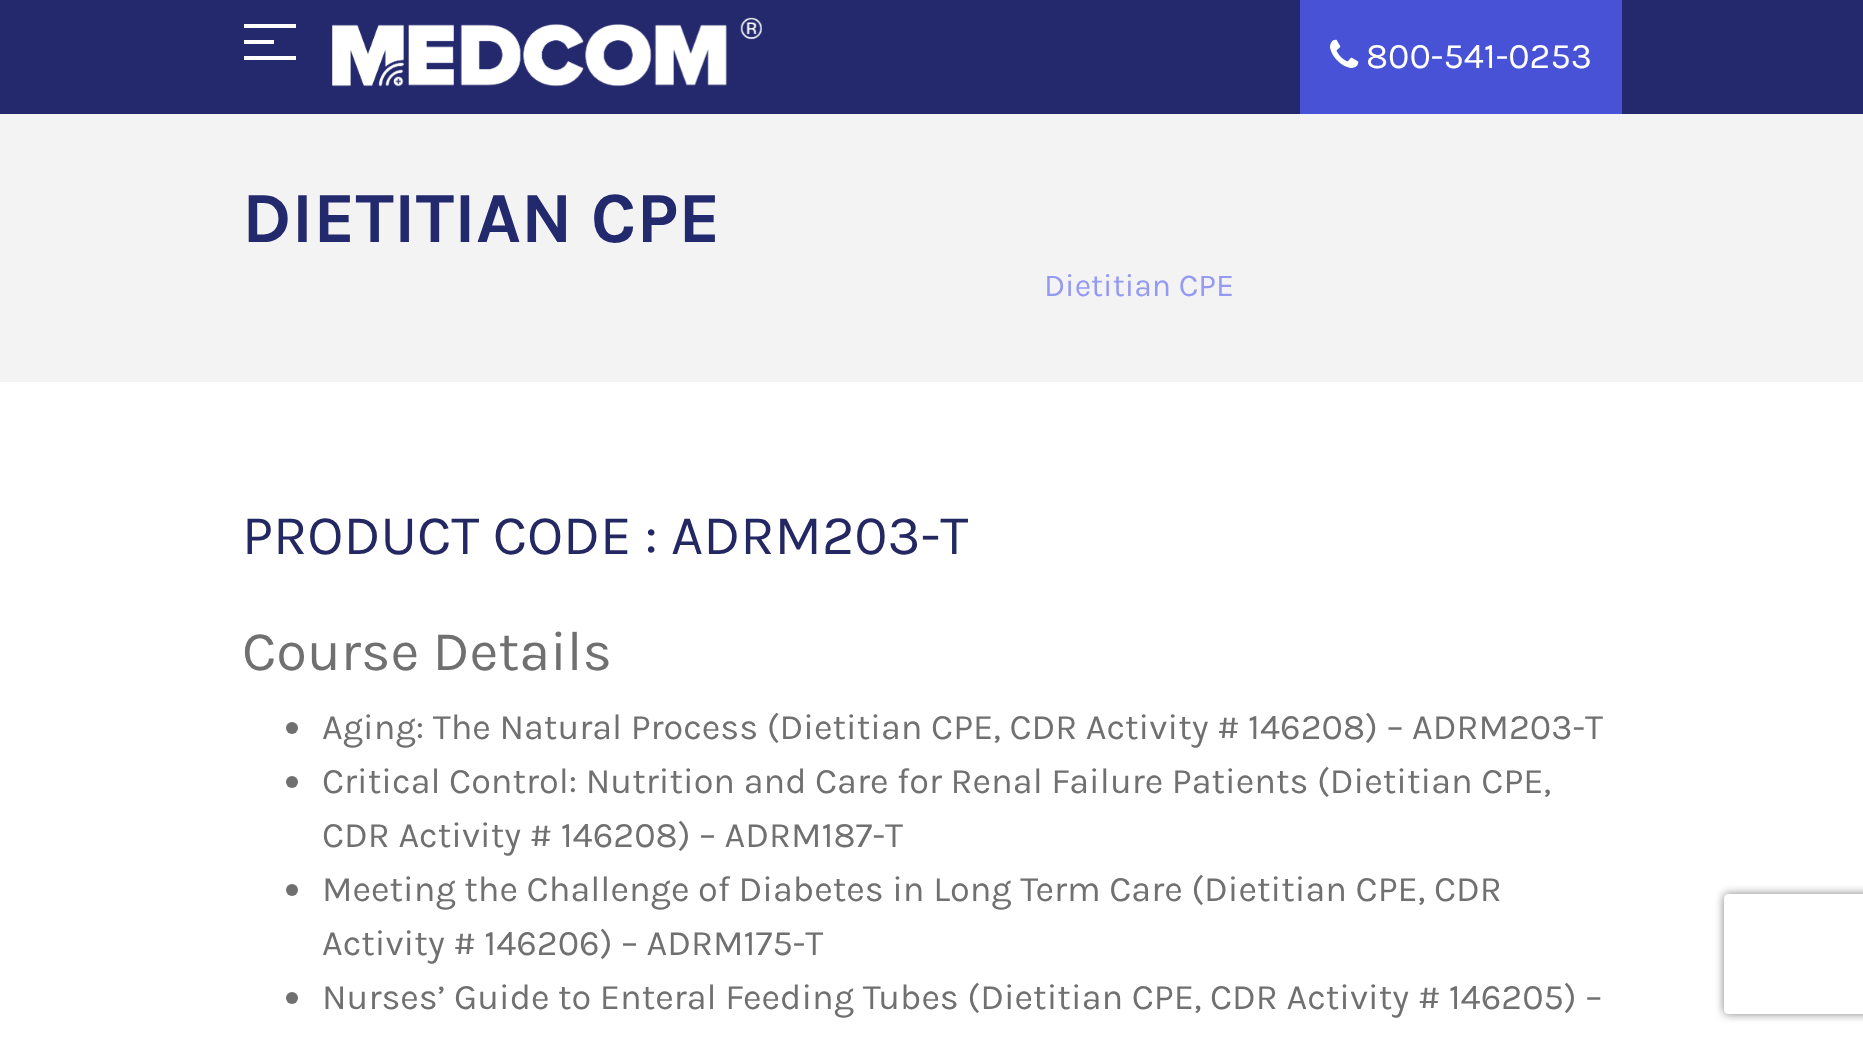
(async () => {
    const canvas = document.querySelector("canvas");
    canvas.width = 1863;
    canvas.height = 1041;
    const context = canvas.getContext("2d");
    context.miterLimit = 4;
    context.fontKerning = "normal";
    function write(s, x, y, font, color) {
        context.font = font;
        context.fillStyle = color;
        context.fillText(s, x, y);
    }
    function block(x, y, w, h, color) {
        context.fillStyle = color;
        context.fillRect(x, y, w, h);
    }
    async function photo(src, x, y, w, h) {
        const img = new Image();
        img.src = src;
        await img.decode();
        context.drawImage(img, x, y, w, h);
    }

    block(0, 0, 1863, 1041, "rgb(255, 255, 255)");
    block(0, 0, 1863, 114, "rgb(36, 41, 109)");
    block(244, 40, 30, 4, "rgb(255, 255, 255)");
    block(244, 24, 52, 4, "rgb(255, 255, 255)");
    block(244, 56, 52, 4, "rgb(255, 255, 255)");
    await photo("media/1.png", 332, 17, 430, 70);
    block(1300, 0, 322, 114, "rgb(72, 82, 214)");
    await photo("media/2.png", 1330, 39, 29, 29);
    write("800-541-0253", 1366, 68, "36px Karla", "rgb(255, 255, 255)");
    block(0, 114, 1863, 268, "rgb(243, 243, 243)");
    write("DIETITIAN CPE", 242, 242, "bold 72px Karla", "rgb(35, 41, 109)");
    write("Dietitian CPE", 1044, 296, "32px Karla", "rgb(148, 154, 244)");
    write("PRODUCT CODE : ADRM203-T", 242, 554, "56px Karla", "rgb(35, 40, 98)");
    write("Course Details", 242, 670, "56px Karla", "rgb(112, 112, 112)");
    context.beginPath();
    context.arc(292, 728, 6, 0, Math.PI * 2);
    context.fill();
    write("Aging: The Natural Process (Dietitian CPE, CDR Activity # 146208) – ADRM203-T", 322, 739, "36px Karla", "rgb(112, 112, 112)");
    context.beginPath();
    context.arc(292, 782, 6, 0, Math.PI * 2);
    context.fill();
    write("Critical Control: Nutrition and Care for Renal Failure Patients (Dietitian CPE,", 322, 793, "36px Karla", "rgb(112, 112, 112)");
    write("CDR Activity # 146208) – ADRM187-T", 322, 847, "36px Karla", "rgb(112, 112, 112)");
    context.beginPath();
    context.arc(292, 890, 6, 0, Math.PI * 2);
    context.fill();
    write("Meeting the Challenge of Diabetes in Long Term Care (Dietitian CPE, CDR", 322, 901, "36px Karla", "rgb(112, 112, 112)");
    write("Activity # 146206) – ADRM175-T", 322, 955, "36px Karla", "rgb(112, 112, 112)");
    context.beginPath();
    context.arc(292, 998, 6, 0, Math.PI * 2);
    context.fill();
    write("Nurses’ Guide to Enteral Feeding Tubes (Dietitian CPE, CDR Activity # 146205) –", 322, 1009, "36px Karla", "rgb(112, 112, 112)");
    context.save();
    context.beginPath();
    context.moveTo(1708, 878);
    context.lineTo(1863, 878);
    context.lineTo(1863, 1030);
    context.lineTo(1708, 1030);
    context.closePath();
    context.moveTo(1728, 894);
    context.lineTo(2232, 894);
    context.bezierCurveTo(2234, 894, 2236, 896, 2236, 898);
    context.lineTo(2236, 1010);
    context.bezierCurveTo(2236, 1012, 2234, 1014, 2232, 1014);
    context.lineTo(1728, 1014);
    context.bezierCurveTo(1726, 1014, 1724, 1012, 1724, 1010);
    context.lineTo(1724, 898);
    context.bezierCurveTo(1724, 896, 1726, 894, 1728, 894);
    context.closePath();
    context.clip("evenodd");
    context.fillStyle = "rgb(128, 128, 128)";
    context.filter = "blur(5px)";
    context.beginPath();
    context.roundRect(1724, 894, 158, 120, 4);
    context.fill();
    context.filter = "none";
    context.restore();
})();
